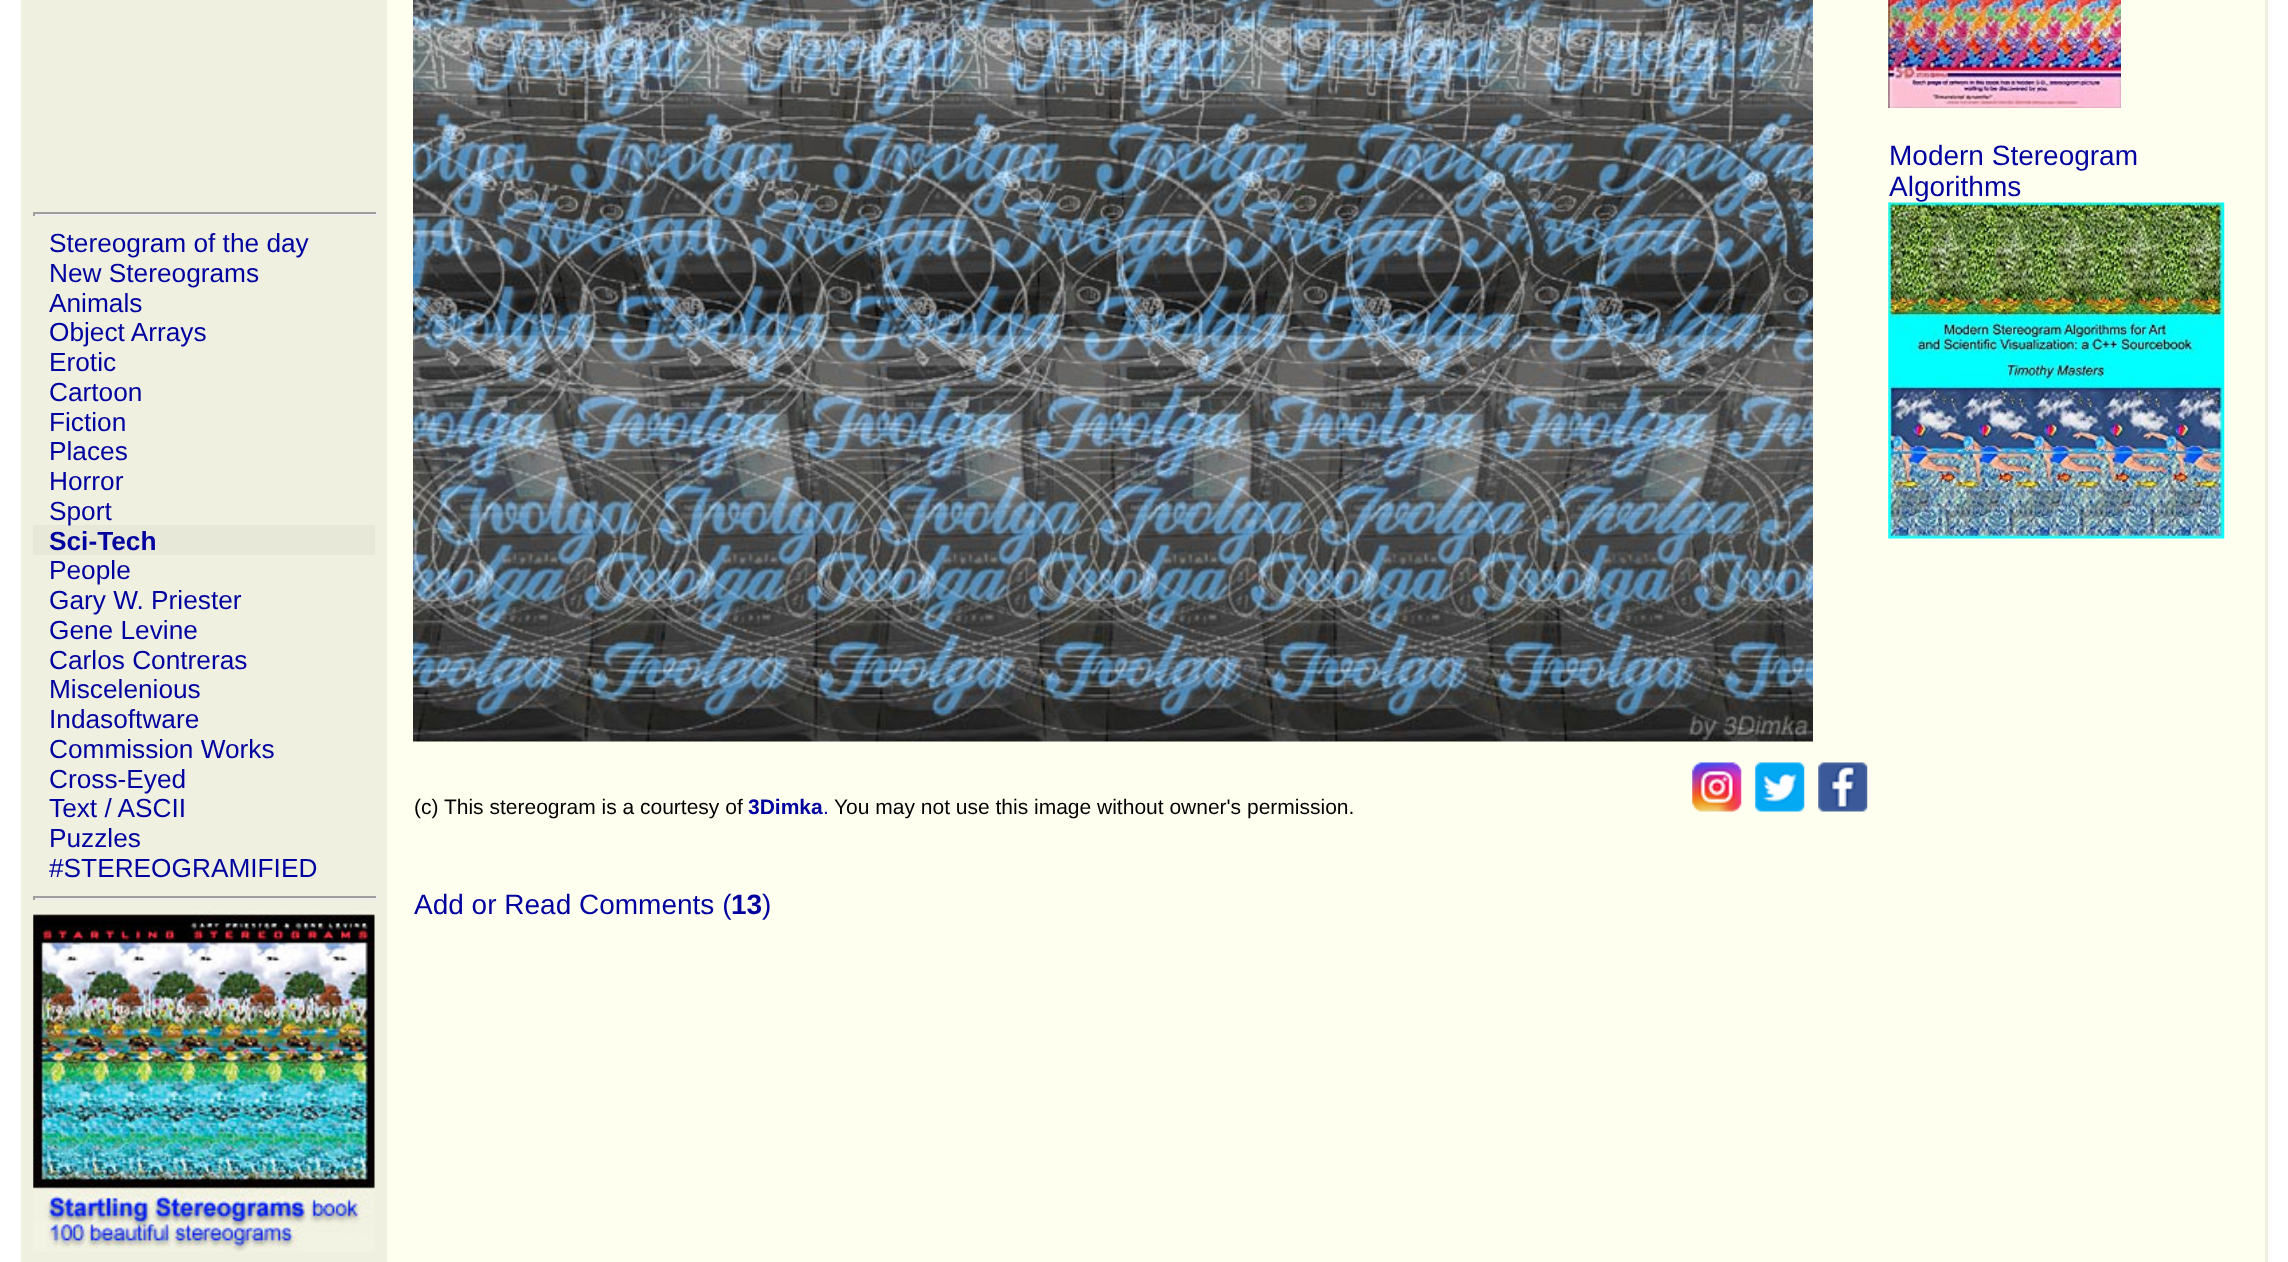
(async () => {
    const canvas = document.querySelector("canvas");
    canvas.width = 2288;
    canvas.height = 1262;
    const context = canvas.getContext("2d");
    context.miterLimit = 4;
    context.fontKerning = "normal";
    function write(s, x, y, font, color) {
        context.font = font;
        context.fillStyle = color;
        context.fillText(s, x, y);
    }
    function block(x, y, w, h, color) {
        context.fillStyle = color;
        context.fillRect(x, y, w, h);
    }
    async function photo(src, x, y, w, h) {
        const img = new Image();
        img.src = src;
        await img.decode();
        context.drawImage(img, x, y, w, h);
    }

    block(0, 0, 2288, 1262, "rgb(255, 255, 255)");
    block(21, 0, 2247, 1262, "rgb(240, 240, 224)");
    block(33, 212, 345, 2, "rgb(159, 159, 159)");
    block(376, 212, 2, 4, "rgb(238, 238, 238)");
    block(33, 214, 345, 2, "rgb(238, 238, 238)");
    block(33, 212, 2, 4, "rgb(159, 159, 159)");
    write("Stereogram of the day", 49, 252, "26.25px Liberation Sans", "rgb(0, 0, 160)");
    write("New Stereograms", 49, 282, "26.25px Liberation Sans", "rgb(0, 0, 160)");
    write("Animals", 49, 312, "26.25px Liberation Sans", "rgb(0, 0, 160)");
    write("Object Arrays", 49, 341, "26.25px Liberation Sans", "rgb(0, 0, 160)");
    write("Erotic", 49, 371, "26.25px Liberation Sans", "rgb(0, 0, 160)");
    write("Cartoon", 49, 401, "26.25px Liberation Sans", "rgb(0, 0, 160)");
    write("Fiction", 49, 431, "26.25px Liberation Sans", "rgb(0, 0, 160)");
    write("Places", 49, 460, "26.25px Liberation Sans", "rgb(0, 0, 160)");
    write("Horror", 49, 490, "26.25px Liberation Sans", "rgb(0, 0, 160)");
    block(33, 525, 342, 30, "rgb(232, 232, 216)");
    write("Sport", 49, 520, "26.25px Liberation Sans", "rgb(0, 0, 160)");
    write("Sci-Tech", 49, 550, "bold 26.25px Liberation Sans", "rgb(0, 0, 160)");
    write("People", 49, 579, "26.25px Liberation Sans", "rgb(0, 0, 160)");
    write("Gary W. Priester", 49, 609, "26.25px Liberation Sans", "rgb(0, 0, 160)");
    write("Gene Levine", 49, 639, "26.25px Liberation Sans", "rgb(0, 0, 160)");
    write("Carlos Contreras", 49, 669, "26.25px Liberation Sans", "rgb(0, 0, 160)");
    write("Miscelenious", 49, 698, "26.25px Liberation Sans", "rgb(0, 0, 160)");
    write("Indasoftware", 49, 728, "26.25px Liberation Sans", "rgb(0, 0, 160)");
    write("Commission Works", 49, 758, "26.25px Liberation Sans", "rgb(0, 0, 160)");
    write("Cross-Eyed", 49, 788, "26.25px Liberation Sans", "rgb(0, 0, 160)");
    write("Text / ASCII", 49, 817, "26.25px Liberation Sans", "rgb(0, 0, 160)");
    write("Puzzles", 49, 847, "26.25px Liberation Sans", "rgb(0, 0, 160)");
    write("#STEREOGRAMIFIED", 49, 877, "26.25px Liberation Sans", "rgb(0, 0, 160)");
    block(33, 896, 345, 2, "rgb(159, 159, 159)");
    block(376, 896, 2, 4, "rgb(238, 238, 238)");
    block(33, 898, 345, 2, "rgb(238, 238, 238)");
    block(33, 896, 2, 4, "rgb(159, 159, 159)");
    await photo("media/1.png", 33, 911, 342, 341);
    block(387, 0, 1878, 1262, "rgb(255, 255, 240)");
    await photo("media/2.png", 413, 0, 1400, 742);
    await photo("media/3.png", 1888, 0, 233, 108);
    write("Modern Stereogram", 1889, 165, "28px Liberation Sans", "rgb(0, 0, 160)");
    write("Algorithms", 1889, 196, "28px Liberation Sans", "rgb(0, 0, 160)");
    await photo("media/4.png", 1888, 202, 337, 337);
    write("(c) This stereogram is a courtesy of", 414, 814, "21px Liberation Sans", "rgb(0, 0, 0)");
    write("3Dimka", 748, 814, "bold 21px Liberation Sans", "rgb(0, 0, 160)");
    write(".", 823, 814, "21px Liberation Sans", "rgb(0, 0, 160)");
    write("You may not use this image without owner's permission.", 834, 814, "21px Liberation Sans", "rgb(0, 0, 0)");
    await photo("media/5.png", 1692, 762, 50, 50);
    await photo("media/6.png", 1755, 762, 50, 50);
    await photo("media/7.png", 1818, 762, 50, 50);
    write("Add or Read Comments (", 414, 914, "28px Liberation Sans", "rgb(0, 0, 160)");
    write("13", 731, 914, "bold 28px Liberation Sans", "rgb(0, 0, 160)");
    write(")", 762, 914, "28px Liberation Sans", "rgb(0, 0, 160)");
})();
